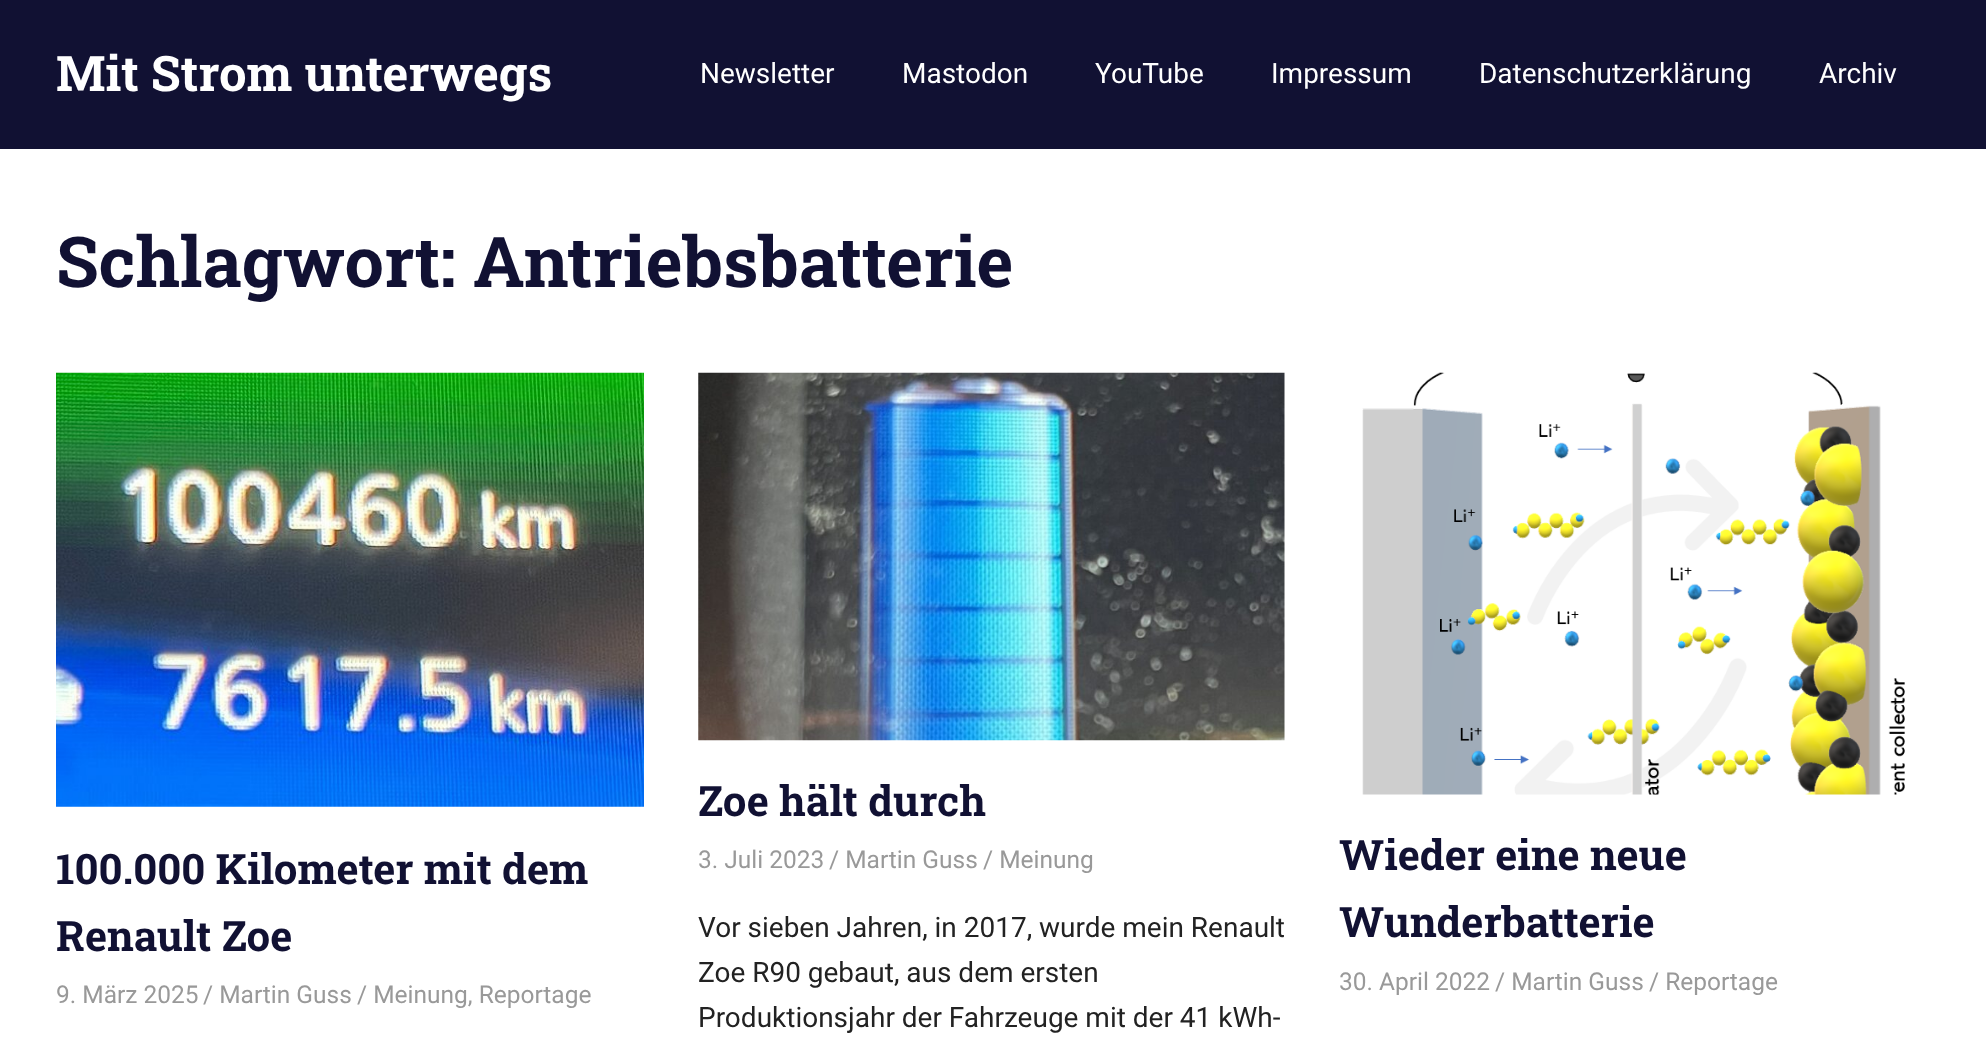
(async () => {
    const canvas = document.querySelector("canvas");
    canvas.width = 1986;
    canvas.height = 1040;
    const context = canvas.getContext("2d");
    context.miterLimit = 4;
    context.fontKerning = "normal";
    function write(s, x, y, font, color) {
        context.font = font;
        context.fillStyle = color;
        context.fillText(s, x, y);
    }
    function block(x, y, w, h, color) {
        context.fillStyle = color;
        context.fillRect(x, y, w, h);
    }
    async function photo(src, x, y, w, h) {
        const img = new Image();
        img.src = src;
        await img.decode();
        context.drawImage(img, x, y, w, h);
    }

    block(0, 0, 1986, 1040, "rgb(255, 255, 255)");
    block(0, 0, 1986, 149, "rgb(17, 17, 51)");
    write("Mit Strom unterwegs", 56, 91, "bold 49px Roboto Slab", "rgb(255, 255, 255)");
    write("Newsletter", 700, 83, "28px Roboto", "rgb(255, 255, 255)");
    write("Mastodon", 902, 83, "28px Roboto", "rgb(255, 255, 255)");
    write("YouTube", 1095, 83, "28px Roboto", "rgb(255, 255, 255)");
    write("Impressum", 1271, 83, "28px Roboto", "rgb(255, 255, 255)");
    write("Datenschutzerklärung", 1479, 83, "28px Roboto", "rgb(255, 255, 255)");
    write("Archiv", 1819, 83, "28px Roboto", "rgb(255, 255, 255)");
    write("Schlagwort: Antriebsbatterie", 56, 287, "bold 70px Roboto Slab", "rgb(17, 17, 51)");
    await photo("media/1.png", 56, 372, 588, 435);
    write("100.000 Kilometer mit dem", 56, 884, "bold 42px Roboto Slab", "rgb(17, 17, 51)");
    write("Renault Zoe", 56, 951, "bold 42px Roboto Slab", "rgb(17, 17, 51)");
    write("9. März 2025", 56, 1003, "24.5px Roboto", "rgb(153, 153, 153)");
    write("/ Martin Guss", 203, 1003, "24.5px Roboto", "rgb(153, 153, 153)");
    write("/ Meinung, Reportage", 357, 1003, "24.5px Roboto", "rgb(153, 153, 153)");
    await photo("media/2.png", 698, 372, 587, 369);
    write("Zoe hält durch", 698, 816, "bold 42px Roboto Slab", "rgb(17, 17, 51)");
    write("3. Juli 2023", 698, 868, "24.5px Roboto", "rgb(153, 153, 153)");
    write("/ Martin Guss", 829, 868, "24.5px Roboto", "rgb(153, 153, 153)");
    write("/ Meinung", 983, 868, "24.5px Roboto", "rgb(153, 153, 153)");
    write("Vor sieben Jahren, in 2017, wurde mein Renault", 698, 937, "28px Roboto", "rgb(34, 34, 34)");
    write("Zoe R90 gebaut, aus dem ersten", 698, 982, "28px Roboto", "rgb(34, 34, 34)");
    write("Produktionsjahr der Fahrzeuge mit der 41 kWh-", 698, 1027, "28px Roboto", "rgb(34, 34, 34)");
    await photo("media/3.png", 1362, 372, 543, 423);
    write("Wieder eine neue", 1339, 870, "bold 42px Roboto Slab", "rgb(17, 17, 51)");
    write("Wunderbatterie", 1339, 937, "bold 42px Roboto Slab", "rgb(17, 17, 51)");
    write("30. April 2022", 1339, 990, "24.5px Roboto", "rgb(153, 153, 153)");
    write("/ Martin Guss", 1495, 990, "24.5px Roboto", "rgb(153, 153, 153)");
    write("/ Reportage", 1649, 990, "24.5px Roboto", "rgb(153, 153, 153)");
})();
